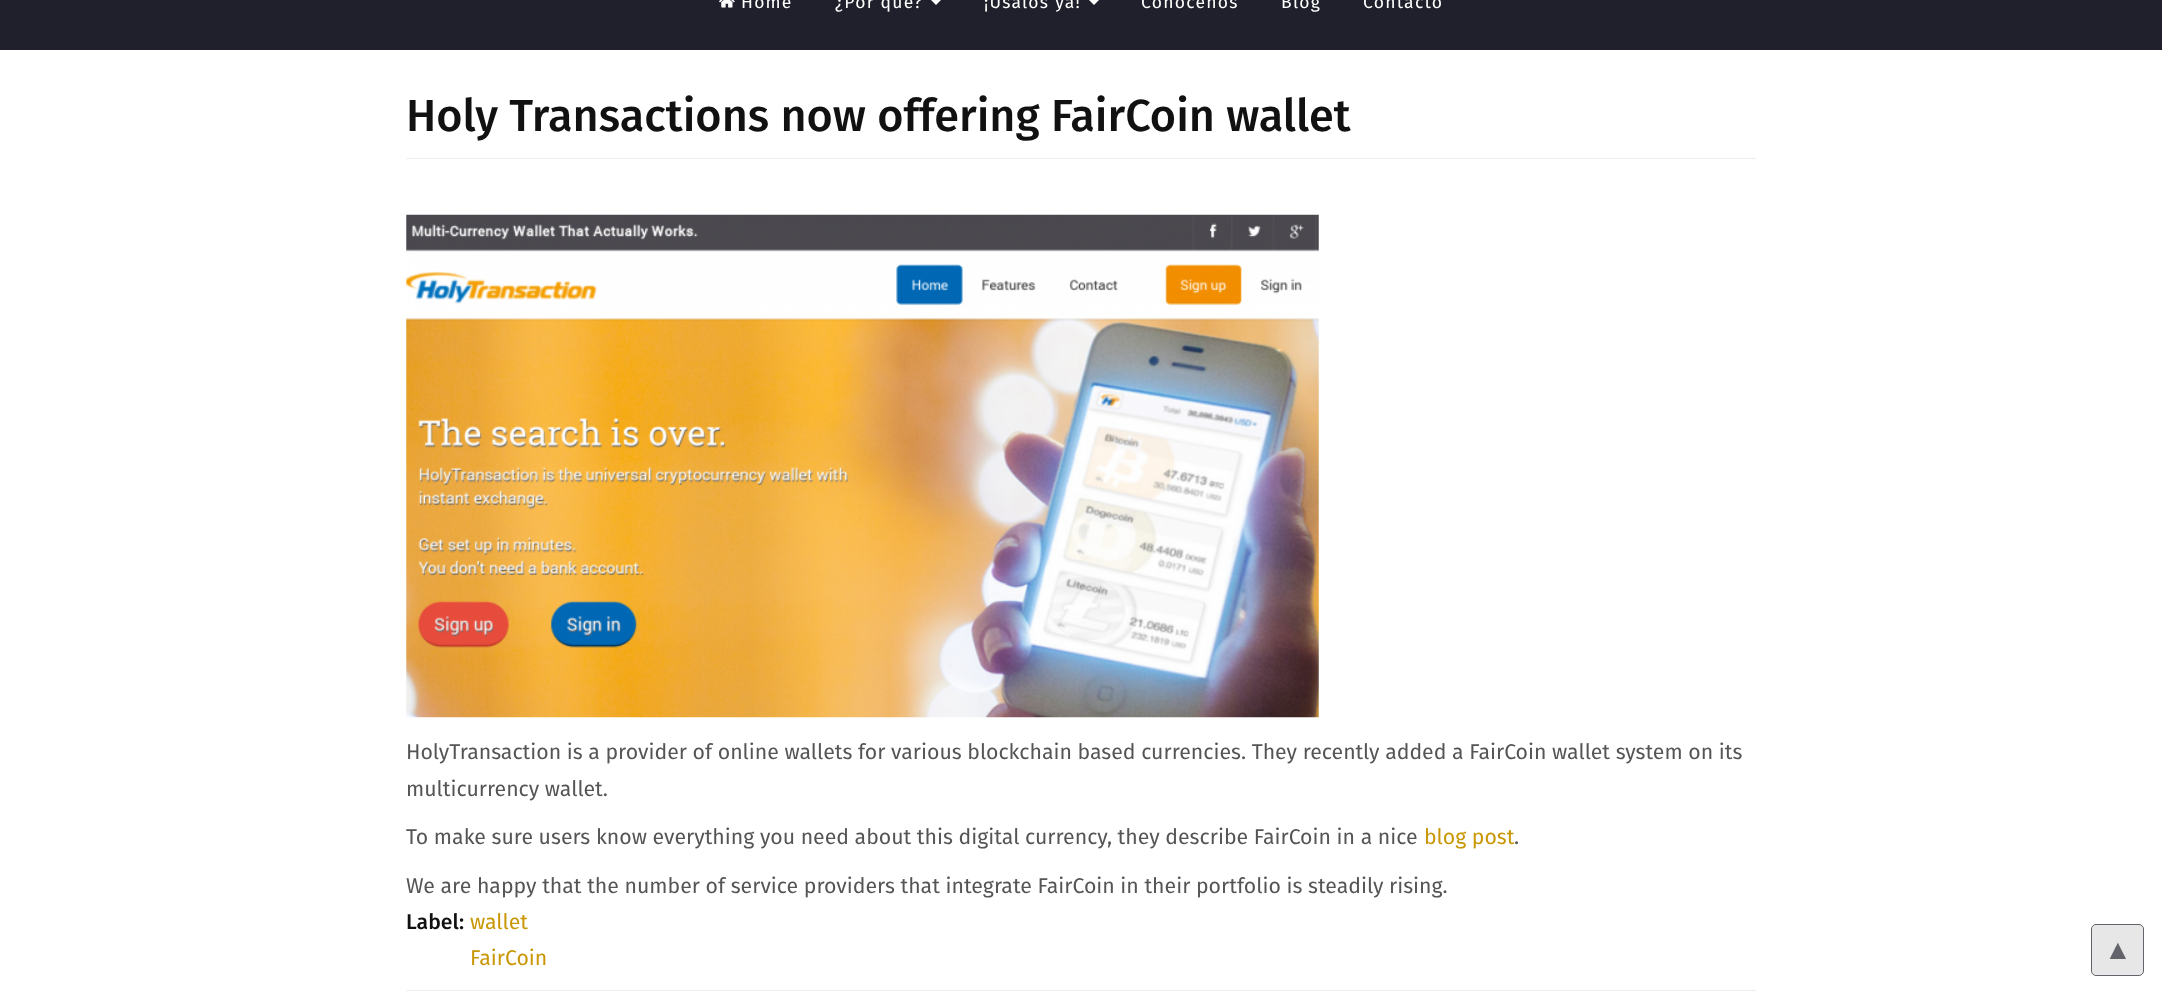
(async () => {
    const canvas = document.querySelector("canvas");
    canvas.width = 2162;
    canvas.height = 994;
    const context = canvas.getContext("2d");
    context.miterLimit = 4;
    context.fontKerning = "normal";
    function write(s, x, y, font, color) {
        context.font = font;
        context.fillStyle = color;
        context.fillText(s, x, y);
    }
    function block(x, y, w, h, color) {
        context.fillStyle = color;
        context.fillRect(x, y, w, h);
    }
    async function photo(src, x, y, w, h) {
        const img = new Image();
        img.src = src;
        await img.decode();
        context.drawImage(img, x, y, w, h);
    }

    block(0, 0, 2162, 994, "rgb(255, 255, 255)");
    block(0, 0, 2162, 50, "rgb(32, 32, 44)");
    await photo("media/1.png", 719, 0, 16, 8);
    context.letterSpacing = "1.25px";
    write("Home", 741, 8, "17.5px Fira Sans", "rgb(255, 255, 255)");
    write("¿Por qué?", 835, 8, "17.5px Fira Sans", "rgb(255, 255, 255)");
    context.beginPath();
    context.moveTo(931, 0);
    context.lineTo(941, 0);
    context.lineTo(936, 5);
    context.closePath();
    context.fill();
    write("¡Úsalos ya!", 984, 8, "17.5px Fira Sans", "rgb(255, 255, 255)");
    context.beginPath();
    context.moveTo(1089, 0);
    context.lineTo(1099, 0);
    context.lineTo(1094, 5);
    context.closePath();
    context.fill();
    write("Conócenos", 1141, 8, "17.5px Fira Sans", "rgb(255, 255, 255)");
    write("Blog", 1281, 8, "17.5px Fira Sans", "rgb(255, 255, 255)");
    write("Contacto", 1363, 8, "17.5px Fira Sans", "rgb(255, 255, 255)");
    block(406, 158, 1350, 1, "rgb(238, 238, 238)");
    context.letterSpacing = "0px";
    write("Holy Transactions now offering FairCoin wallet", 406, 131, "500 45px Fira Sans", "rgb(17, 17, 17)");
    await photo("media/2.png", 406, 214, 913, 504);
    write("HolyTransaction is a provider of online wallets for various blockchain based currencies. They recently added a FairCoin wallet system on its", 406, 759, "21.25px Fira Sans", "rgb(85, 85, 85)");
    write("multicurrency wallet.", 406, 796, "21.25px Fira Sans", "rgb(85, 85, 85)");
    write("To make sure users know everything you need about this digital currency, they describe FairCoin in a nice", 406, 844, "21.25px Fira Sans", "rgb(85, 85, 85)");
    write("blog post", 1424, 844, "21.25px Fira Sans", "rgb(201, 151, 5)");
    write(".", 1514, 844, "21.25px Fira Sans", "rgb(85, 85, 85)");
    write("We are happy that the number of service providers that integrate FairCoin in their portfolio is steadily rising.", 406, 893, "21.25px Fira Sans", "rgb(85, 85, 85)");
    write("Label:", 406, 929, "500 21.25px Fira Sans", "rgb(17, 17, 17)");
    write("wallet", 470, 929, "21.25px Fira Sans", "rgb(201, 151, 5)");
    write("FairCoin", 470, 965, "21.25px Fira Sans", "rgb(201, 151, 5)");
    block(406, 990, 1350, 1, "rgb(238, 238, 238)");
    context.fillStyle = "rgb(231, 231, 231)";
    context.beginPath();
    context.roundRect(2091.5, 924.5, 52, 51, 4.5);
    context.fill();
    context.strokeStyle = "rgb(99, 99, 107)";
    context.stroke();
    write("▲", 2104, 959, "28px Liberation Sans", "rgb(99, 99, 107)");
})();
